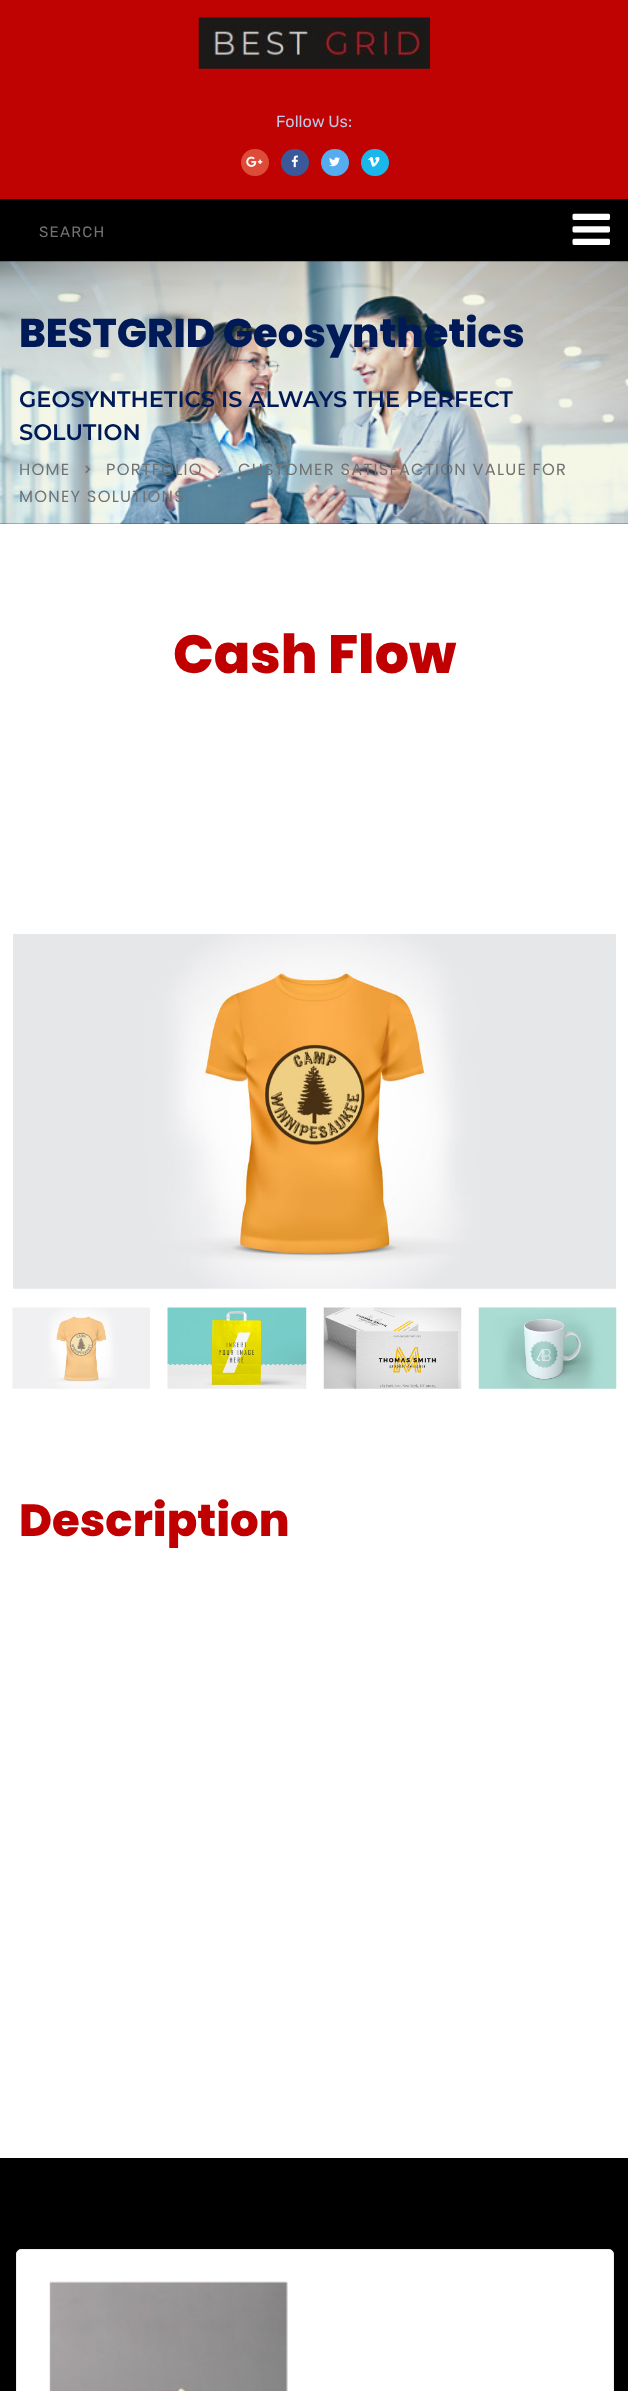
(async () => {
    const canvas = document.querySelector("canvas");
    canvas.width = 628;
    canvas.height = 2391;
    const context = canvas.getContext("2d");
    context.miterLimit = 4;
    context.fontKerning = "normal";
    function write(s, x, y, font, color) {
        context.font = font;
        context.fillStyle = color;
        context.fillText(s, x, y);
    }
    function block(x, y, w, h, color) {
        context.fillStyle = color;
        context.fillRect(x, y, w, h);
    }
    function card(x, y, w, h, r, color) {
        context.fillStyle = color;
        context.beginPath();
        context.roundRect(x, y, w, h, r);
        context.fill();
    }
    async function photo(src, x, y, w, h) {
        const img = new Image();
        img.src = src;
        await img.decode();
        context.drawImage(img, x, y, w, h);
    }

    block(0, 0, 628, 2391, "rgb(0, 0, 0)");
    block(0, 0, 628, 199, "rgb(191, 3, 3)");
    await photo("media/1.png", 198, 17, 232, 52);
    write("Follow Us:", 276, 127, "16.25px Rubik", "rgb(188, 200, 228)");
    card(241, 149, 28, 27, 13.5, "rgb(221, 75, 57)");
    await photo("media/2.png", 246, 156, 17, 11);
    card(281, 149, 28, 27, 13.5, "rgb(59, 89, 153)");
    await photo("media/3.png", 291, 155, 7, 13);
    card(321, 149, 28, 27, 13.5, "rgb(85, 172, 238)");
    await photo("media/4.png", 329, 157, 11, 10);
    card(361, 149, 28, 27, 13.5, "rgb(26, 183, 234)");
    await photo("media/5.png", 368, 156, 12, 11);
    context.letterSpacing = "1.25px";
    write("SEARCH", 39, 237, "15px Rubik", "rgb(114, 114, 114)");
    await photo("media/6.png", 572, 213, 38, 32);
    await photo("media/7.png", 0, 261, 628, 263);
    context.letterSpacing = "0px";
    write("BESTGRID Geosynthetics", 19, 347, "800 40px Poppins", "rgb(0, 26, 87)");
    write("GEOSYNTHETICS IS ALWAYS THE PERFECT", 19, 407, "600 22.5px Montserrat", "rgb(0, 26, 87)");
    write("SOLUTION", 19, 440, "600 22.5px Montserrat", "rgb(0, 26, 87)");
    context.letterSpacing = "1.25px";
    write("HOME", 19, 475, "16.25px Poppins", "rgb(114, 114, 114)");
    await photo("media/8.png", 85, 465, 6, 9);
    write("PORTFOLIO", 106, 475, "16.25px Poppins", "rgb(114, 114, 114)");
    await photo("media/9.png", 217, 465, 6, 9);
    write("CUSTOMER SATISFACTION VALUE FOR", 238, 475, "16.25px Poppins", "rgb(114, 114, 114)");
    write("MONEY SOLUTIONS", 19, 502, "16.25px Poppins", "rgb(114, 114, 114)");
    block(0, 524, 628, 1634, "rgb(255, 255, 255)");
    context.letterSpacing = "0px";
    write("Cash Flow", 173, 673, "800 53.75px Poppins", "rgb(192, 0, 0)");
    await photo("media/10.png", 13, 934, 603, 355);
    await photo("media/11.png", 12, 1307, 138, 82);
    await photo("media/12.png", 167, 1307, 140, 82);
    await photo("media/13.png", 323, 1307, 139, 82);
    await photo("media/14.png", 478, 1307, 139, 82);
    write("Description", 19, 1536, "800 45px Poppins", "rgb(192, 0, 0)");
    context.fillStyle = "rgb(255, 255, 255)";
    context.beginPath();
    context.roundRect(16.5, 2249.5, 597, 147, 4.5);
    context.fill();
    context.strokeStyle = "rgb(238, 238, 238)";
    context.stroke();
    await photo("media/15.png", 49, 2281, 239, 110);
})();
